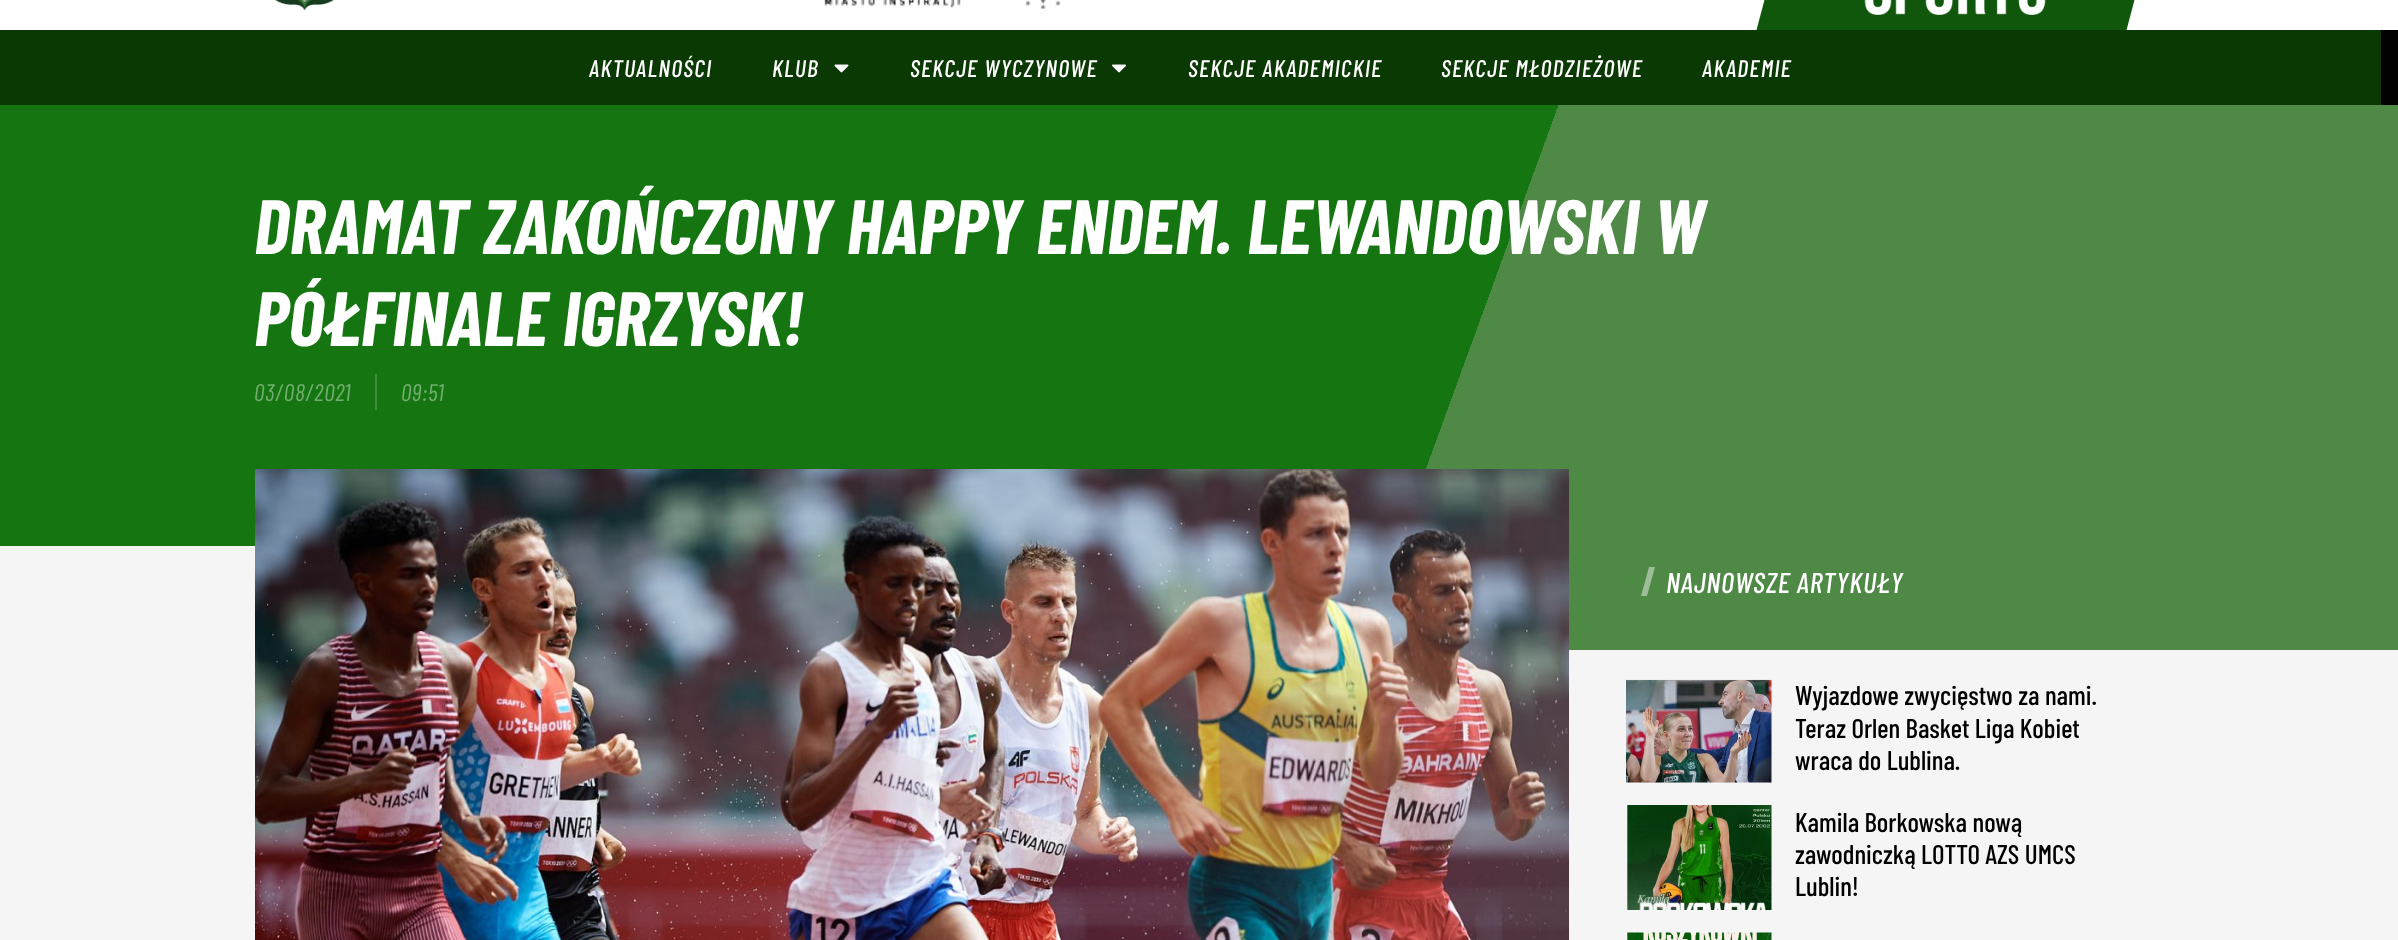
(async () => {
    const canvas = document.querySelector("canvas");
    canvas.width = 2398;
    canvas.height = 940;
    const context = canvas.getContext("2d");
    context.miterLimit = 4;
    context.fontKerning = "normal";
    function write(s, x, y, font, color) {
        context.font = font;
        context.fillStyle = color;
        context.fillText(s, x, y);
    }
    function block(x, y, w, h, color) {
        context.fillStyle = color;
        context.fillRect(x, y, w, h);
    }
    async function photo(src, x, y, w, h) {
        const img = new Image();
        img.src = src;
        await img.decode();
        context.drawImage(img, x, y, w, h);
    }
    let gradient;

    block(0, 0, 2398, 940, "rgb(255, 255, 255)");
    await photo("media/1.png", 275, 0, 59, 10);
    await photo("media/2.png", 824, 0, 137, 8);
    await photo("media/3.png", 1025, 0, 36, 9);
    context.fillStyle = "rgb(16, 86, 11)";
    context.beginPath();
    context.moveTo(1792, -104);
    context.lineTo(2162, -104);
    context.lineTo(2126, 32);
    context.lineTo(1756, 32);
    context.closePath();
    context.fill();
    await photo("media/4.png", 1864, 0, 182, 15);
    block(2381, 30, 17, 75, "rgb(2, 1, 1)");
    block(0, 30, 2381, 75, "rgb(10, 57, 3)");
    context.letterSpacing = "1.25px";
    write("AKTUALNOŚCI", 589, 77, "italic 500 24px Barlow Condensed", "rgb(255, 255, 255)");
    write("KLUB", 772, 77, "italic 500 24px Barlow Condensed", "rgb(255, 255, 255)");
    await photo("media/5.png", 834, 64, 15, 9);
    write("SEKCJE WYCZYNOWE", 910, 77, "italic 500 24px Barlow Condensed", "rgb(255, 255, 255)");
    await photo("media/6.png", 1112, 64, 14, 9);
    write("SEKCJE AKADEMICKIE", 1188, 77, "italic 500 24px Barlow Condensed", "rgb(255, 255, 255)");
    write("SEKCJE MŁODZIEŻOWE", 1441, 77, "italic 500 24px Barlow Condensed", "rgb(255, 255, 255)");
    write("AKADEMIE", 1702, 77, "italic 500 24px Barlow Condensed", "rgb(255, 255, 255)");
    gradient = context.createLinearGradient(53, -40, 2346, 795);
    gradient.addColorStop(0.6, "rgb(21, 118, 17)");
    gradient.addColorStop(0.6, "rgb(78, 137, 69)");
    context.fillStyle = gradient;
    context.fillRect(0, 105, 2398, 545);
    context.letterSpacing = "0px";
    write("DRAMAT ZAKOŃCZONY HAPPY ENDEM. LEWANDOWSKI W", 254, 254, "italic bold 76.75px Barlow Condensed", "rgb(255, 255, 255)");
    write("PÓŁFINALE IGRZYSK!", 254, 346, "italic bold 76.75px Barlow Condensed", "rgb(255, 255, 255)");
    context.letterSpacing = "0.75px";
    write("03/08/2021", 254, 401, "italic 24px Barlow Condensed", "rgb(115, 173, 112)");
    block(375, 374, 2, 36, "rgb(58, 140, 55)");
    write("09:51", 401, 401, "italic 24px Barlow Condensed", "rgb(115, 173, 112)");
    context.fillStyle = "rgb(245, 245, 245)";
    context.beginPath();
    context.moveTo(-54, 546);
    context.lineTo(1331, 546);
    context.lineTo(1295, 651);
    context.lineTo(-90, 651);
    context.closePath();
    context.fill();
    block(0, 650, 2398, 290, "rgb(245, 245, 245)");
    await photo("media/7.png", 255, 469, 1314, 471);
    context.fillStyle = "rgb(156, 189, 151)";
    context.beginPath();
    context.moveTo(1649, 567);
    context.lineTo(1655, 567);
    context.lineTo(1647, 596);
    context.lineTo(1641, 596);
    context.closePath();
    context.fill();
    write("NAJNOWSZE ARTYKUŁY", 1666, 593, "italic 500 28.75px Barlow Condensed", "rgb(255, 255, 255)");
    await photo("media/8.png", 1626, 679, 146, 104);
    context.letterSpacing = "0px";
    write("Wyjazdowe zwycięstwo za nami.", 1795, 705, "500 27px Barlow Condensed", "rgb(0, 0, 0)");
    write("Teraz Orlen Basket Liga Kobiet", 1795, 738, "500 27px Barlow Condensed", "rgb(0, 0, 0)");
    write("wraca do Lublina.", 1795, 770, "500 27px Barlow Condensed", "rgb(0, 0, 0)");
    await photo("media/9.png", 1627, 805, 145, 105);
    write("Kamila Borkowska nową", 1795, 832, "500 27px Barlow Condensed", "rgb(0, 0, 0)");
    write("zawodniczką LOTTO AZS UMCS", 1795, 864, "500 27px Barlow Condensed", "rgb(0, 0, 0)");
    write("Lublin!", 1795, 896, "500 27px Barlow Condensed", "rgb(0, 0, 0)");
    await photo("media/10.png", 1627, 932, 145, 8);
})();
